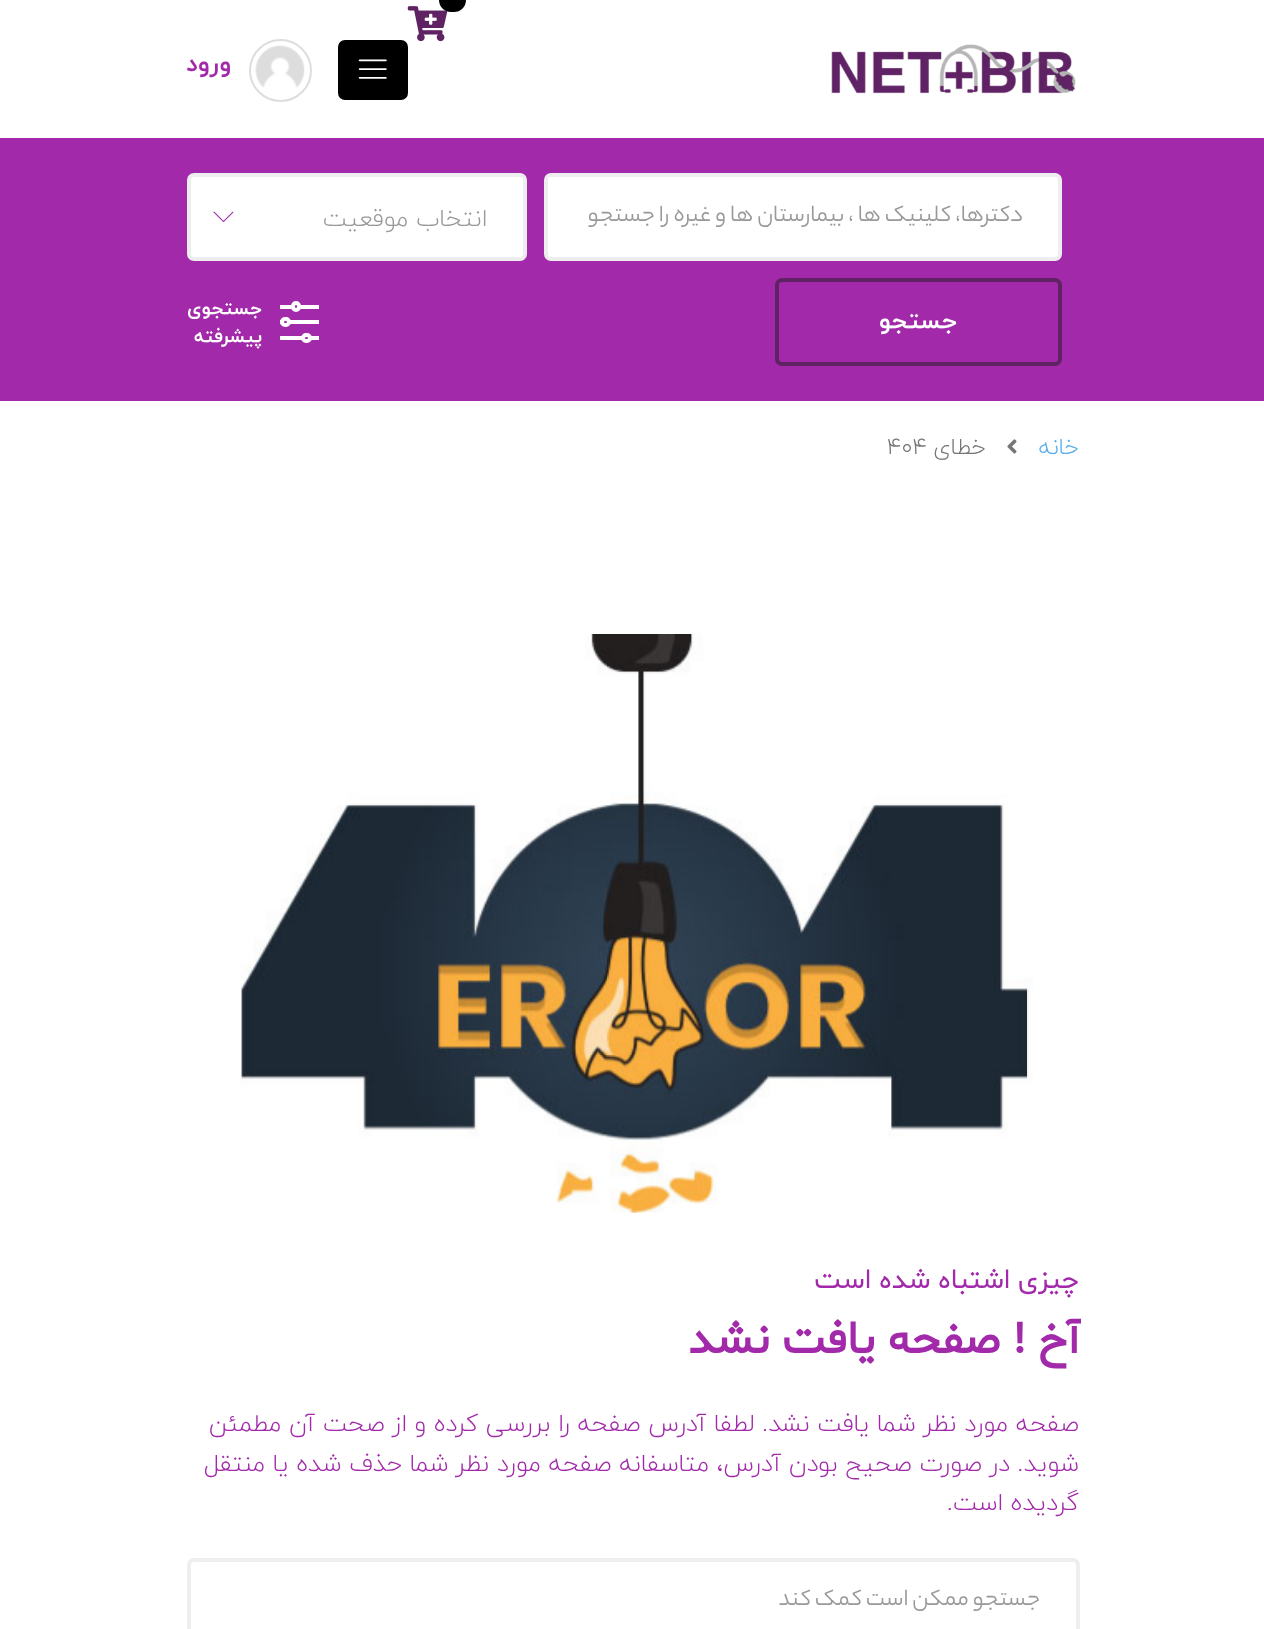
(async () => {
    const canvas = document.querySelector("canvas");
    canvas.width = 1264;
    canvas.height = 1629;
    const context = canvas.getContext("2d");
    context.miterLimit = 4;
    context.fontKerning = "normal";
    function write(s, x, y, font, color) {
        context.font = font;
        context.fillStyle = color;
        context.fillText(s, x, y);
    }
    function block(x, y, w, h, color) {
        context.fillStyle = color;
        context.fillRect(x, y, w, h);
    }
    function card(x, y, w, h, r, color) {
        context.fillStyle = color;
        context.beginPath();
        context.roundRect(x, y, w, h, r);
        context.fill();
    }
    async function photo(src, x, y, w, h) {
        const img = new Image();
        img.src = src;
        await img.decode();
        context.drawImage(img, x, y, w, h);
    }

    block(0, 0, 1264, 1629, "rgb(255, 255, 255)");
    await photo("media/1.png", 831, 44, 245, 50);
    card(338, 40, 70, 60, 7, "rgb(0, 0, 0)");
    await photo("media/2.png", 407, 6, 41, 36);
    context.beginPath();
    context.roundRect(439, 0, 27, 12, [0, 0, 13, 13]);
    context.fill();
    await photo("media/3.png", 358, 59, 29, 20);
    context.beginPath();
    context.arc(280.5, 70.5, 30.5, 0, Math.PI * 2);
    context.strokeStyle = "rgb(221, 221, 221)";
    context.lineWidth = 2;
    context.stroke();
    await photo("media/4.png", 255, 45, 50, 43);
    context.direction = "rtl";
    write("ورود", 231, 71, "bold 24.5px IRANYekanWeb", "rgb(162, 42, 170)");
    block(0, 138, 1264, 263, "rgb(162, 42, 170)");
    context.fillStyle = "rgb(255, 255, 255)";
    context.beginPath();
    context.roundRect(546, 175, 514, 84, 5);
    context.fill();
    context.strokeStyle = "rgb(238, 238, 238)";
    context.lineWidth = 4;
    context.stroke();
    context.save();
    context.beginPath();
    context.rect(583, 198, 441, 38);
    context.clip();
    context.wordSpacing = "0.25px";
    write("دکترها، کلینیک ها ، بیمارستان ها و غیره را جستجو کنید.", 1023, 221, "24.5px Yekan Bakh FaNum", "rgb(153, 153, 153)");
    context.restore();
    context.beginPath();
    context.roundRect(189, 175, 336, 84, 5);
    context.fill();
    context.stroke();
    write("انتخاب موقعیت", 487, 226, "300 24.5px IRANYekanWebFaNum", "rgb(153, 153, 153)");
    await photo("media/5.png", 213, 211, 21, 11);
    context.beginPath();
    context.roundRect(777, 280, 283, 84, 5);
    context.strokeStyle = "rgb(95, 34, 99)";
    context.stroke();
    write("جستجو", 957, 328, "bold 24.5px IRANYekanWeb", "rgb(255, 255, 255)");
    block(280, 305, 39, 4, "rgb(255, 255, 255)");
    context.fillStyle = "rgb(162, 42, 170)";
    context.beginPath();
    context.roundRect(293, 303, 6, 7, 3);
    context.fill();
    context.strokeStyle = "rgb(255, 255, 255)";
    context.stroke();
    block(280, 320, 39, 4, "rgb(255, 255, 255)");
    context.fillStyle = "rgb(162, 42, 170)";
    context.beginPath();
    context.roundRect(282, 319, 7, 6, 3);
    context.fill();
    context.stroke();
    block(280, 336, 39, 4, "rgb(255, 255, 255)");
    context.fillStyle = "rgb(162, 42, 170)";
    context.beginPath();
    context.roundRect(303, 335, 7, 6, 3);
    context.fill();
    context.stroke();
    write("جستجوی", 262, 314, "bold 19px IRANYekanWeb", "rgb(255, 255, 255)");
    write("پیشرفته", 262, 342, "bold 19px IRANYekanWeb", "rgb(255, 255, 255)");
    write("خانه", 1079, 454, "300 23px IRANYekanWebFaNum", "rgb(85, 172, 238)");
    await photo("media/6.png", 1007, 439, 10, 15);
    write("خطای", 986, 454, "300 23px IRANYekanWebFaNum", "rgb(118, 118, 118)");
    context.direction = "ltr";
    write("404", 887, 454, "300 23px IRANYekanWebFaNum", "rgb(118, 118, 118)");
    await photo("media/7.png", 240, 634, 793, 579);
    context.direction = "rtl";
    write("چیزی اشتباه شده است", 1079, 1288, "28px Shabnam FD", "rgb(162, 42, 170)");
    write("آخ ! صفحه یافت نشد", 1079, 1353, "bold 45.5px Shabnam FD", "rgb(162, 42, 170)");
    write("صفحه مورد نظر شما یافت نشد. لطفا آدرس صفحه را بررسی کرده و از صحت آن مطمئن", 1079, 1431, "300 24.5px IRANYekanWebFaNum", "rgb(162, 42, 170)");
    write("شوید. در صورت صحیح بودن آدرس، متاسفانه صفحه مورد نظر شما حذف شده یا منتقل", 1079, 1471, "300 24.5px IRANYekanWebFaNum", "rgb(162, 42, 170)");
    write("گردیده است.", 1079, 1510, "300 24.5px IRANYekanWebFaNum", "rgb(162, 42, 170)");
    context.beginPath();
    context.roundRect(189, 1560, 889, 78, 5);
    context.strokeStyle = "rgb(238, 238, 238)";
    context.stroke();
    write("جستجو ممکن است کمک کند", 1040, 1605, "24.5px Yekan Bakh FaNum", "rgb(153, 153, 153)");
})();
